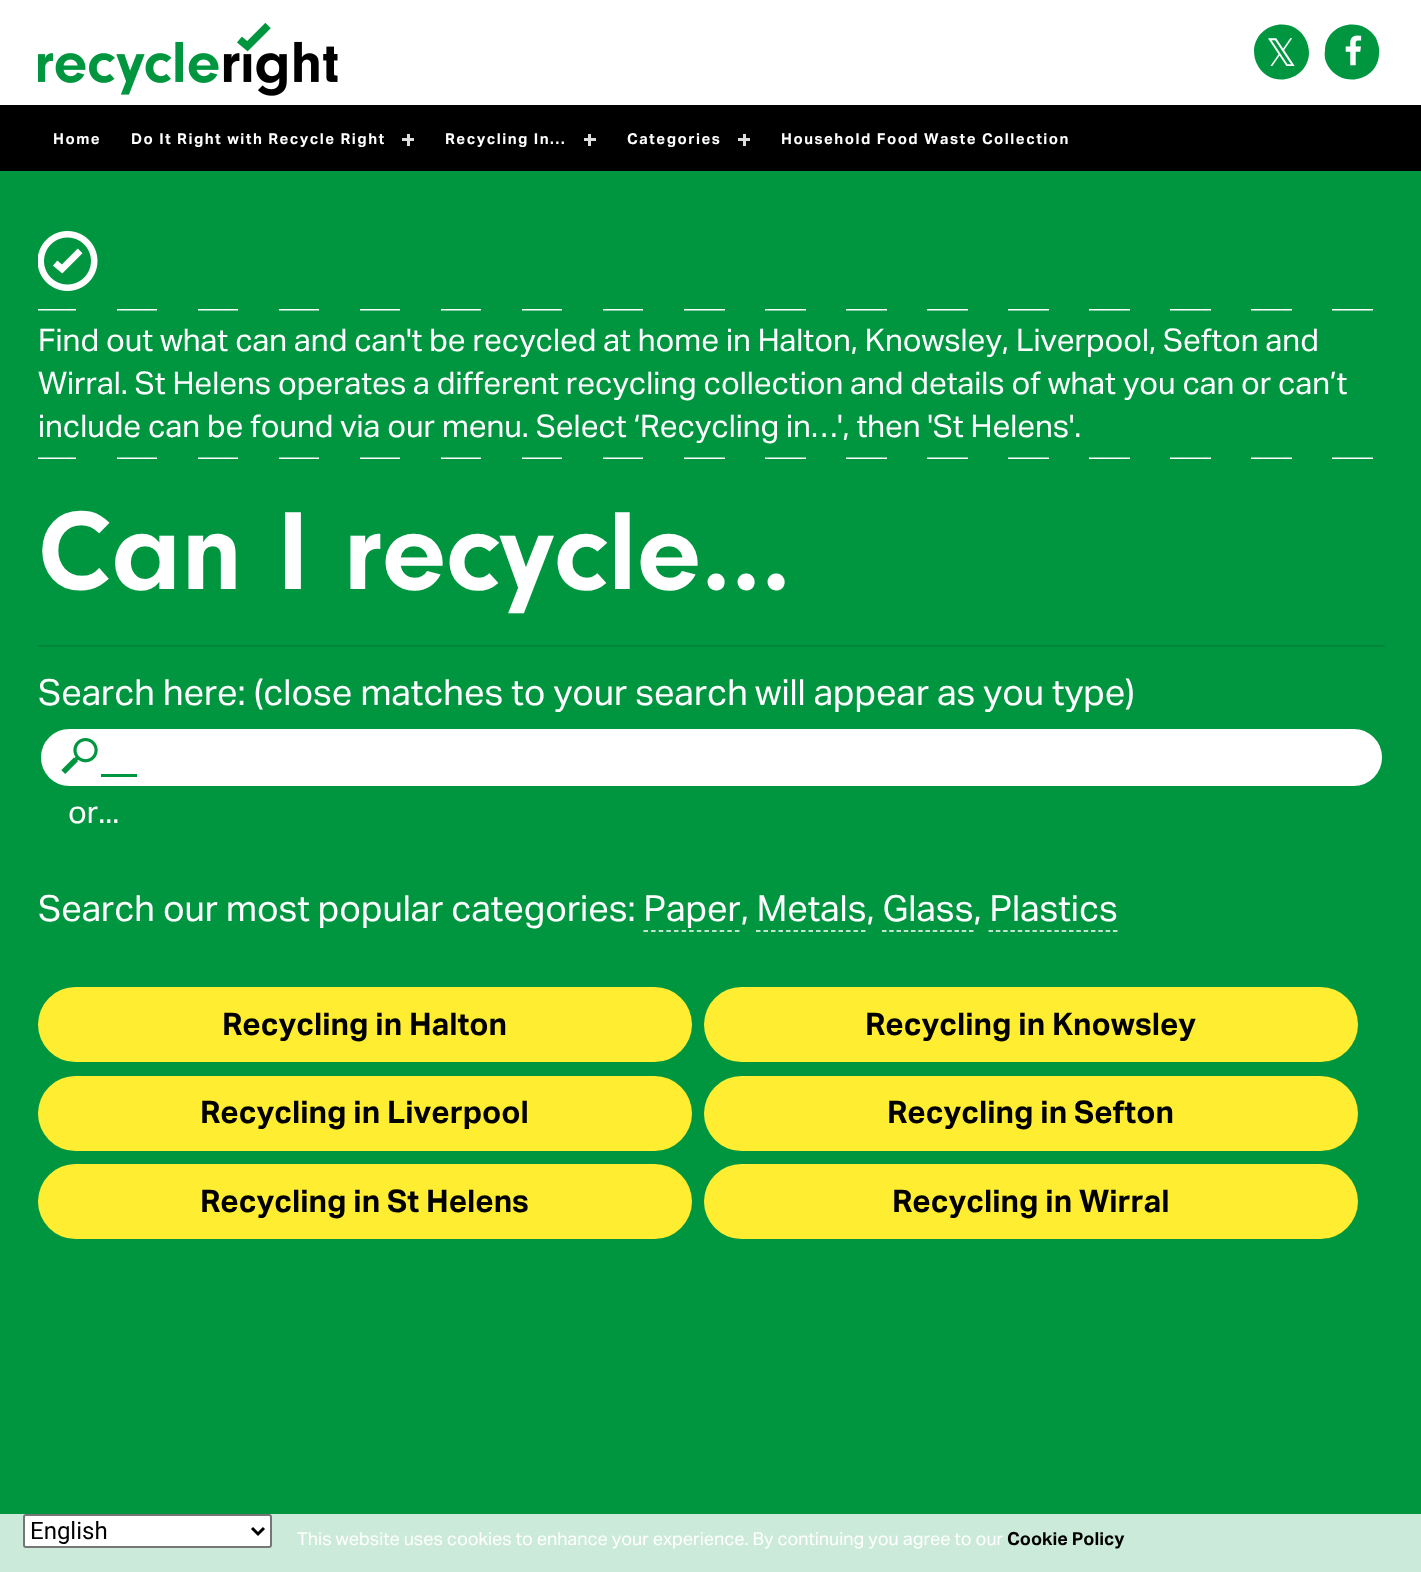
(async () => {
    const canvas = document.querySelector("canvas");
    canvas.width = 1421;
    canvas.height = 1572;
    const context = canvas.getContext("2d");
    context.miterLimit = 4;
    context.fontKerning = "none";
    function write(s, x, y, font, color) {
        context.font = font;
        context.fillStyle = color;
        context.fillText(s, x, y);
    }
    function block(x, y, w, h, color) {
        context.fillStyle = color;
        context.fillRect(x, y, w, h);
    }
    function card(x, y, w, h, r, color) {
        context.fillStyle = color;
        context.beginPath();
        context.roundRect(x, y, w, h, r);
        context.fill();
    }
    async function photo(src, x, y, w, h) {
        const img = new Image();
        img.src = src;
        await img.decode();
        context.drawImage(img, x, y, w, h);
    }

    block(0, 0, 1421, 1572, "rgb(255, 255, 255)");
    await photo("media/1.png", 38, 23, 300, 73);
    context.fillStyle = "rgb(0, 150, 64)";
    context.beginPath();
    context.moveTo(1305, 38);
    context.bezierCurveTo(1308, 43, 1309, 49, 1309, 54);
    context.bezierCurveTo(1307, 81, 1271, 89, 1258, 66);
    context.bezierCurveTo(1255, 61, 1254, 56, 1254, 50);
    context.bezierCurveTo(1256, 23, 1292, 15, 1305, 38);
    context.closePath();
    context.fill();
    write("𝕏", 1266, 66, "38px DejaVu Sans", "rgb(255, 255, 255)");
    context.fillStyle = "rgb(0, 150, 64)";
    context.beginPath();
    context.moveTo(1376, 38);
    context.bezierCurveTo(1378, 43, 1380, 49, 1379, 54);
    context.bezierCurveTo(1378, 81, 1342, 89, 1328, 66);
    context.bezierCurveTo(1325, 61, 1324, 56, 1325, 50);
    context.bezierCurveTo(1326, 23, 1362, 15, 1376, 38);
    context.closePath();
    context.fill();
    await photo("media/2.png", 1345, 35, 17, 31);
    block(0, 105, 1421, 66, "rgb(0, 0, 0)");
    context.letterSpacing = "1.5px";
    write("Home", 53, 144, "bold 15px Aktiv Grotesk", "rgb(255, 255, 255)");
    write("Do It Right with Recycle Right", 131, 144, "bold 15px Aktiv Grotesk", "rgb(255, 255, 255)");
    block(407, 134, 3, 12, "rgb(221, 221, 221)");
    block(402, 138, 12, 3, "rgb(221, 221, 221)");
    write("Recycling In…", 445, 144, "bold 15px Aktiv Grotesk", "rgb(255, 255, 255)");
    block(588, 134, 3, 12, "rgb(221, 221, 221)");
    block(584, 138, 12, 3, "rgb(221, 221, 221)");
    write("Categories", 627, 144, "bold 15px Aktiv Grotesk", "rgb(255, 255, 255)");
    block(743, 134, 3, 12, "rgb(221, 221, 221)");
    block(738, 138, 12, 3, "rgb(221, 221, 221)");
    write("Household Food Waste Collection", 781, 144, "bold 15px Aktiv Grotesk", "rgb(255, 255, 255)");
    block(0, 171, 1421, 1343, "rgb(0, 150, 64)");
    await photo("media/3.png", 38, 231, 60, 60);
    await photo("media/4.png", 38, 309, 1335, 150);
    context.letterSpacing = "0px";
    write("Find out what can and can't be recycled at home in Halton, Knowsley,", 38, 351, "31.2px Aktiv Grotesk", "rgb(255, 255, 255)");
    write("Liverpool, Sefton and", 1016, 351, "31.2px Aktiv Grotesk", "rgb(255, 255, 255)");
    write("Wirral. St Helens operates a different recycling collection and details of what you can", 38, 394, "31.2px Aktiv Grotesk", "rgb(255, 255, 255)");
    write("or can’t", 1241, 394, "31.2px Aktiv Grotesk", "rgb(255, 255, 255)");
    write("include can be found via our menu. Select ‘Recycling in…', then 'St Helens'.", 38, 437, "31.2px Aktiv Grotesk", "rgb(255, 255, 255)");
    write("Can I recycle...", 38, 589, "bold 115.25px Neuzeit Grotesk", "rgb(255, 255, 255)");
    block(38, 645, 1347, 2, "rgb(0, 135, 58)");
    write("Search here: (close matches to your search", 38, 705, "36px Aktiv Grotesk", "rgb(255, 255, 255)");
    write("will appear as you type)", 755, 705, "36px Aktiv Grotesk", "rgb(255, 255, 255)");
    context.beginPath();
    context.roundRect(39.5, 727.5, 1344, 60, 30);
    context.fill();
    context.strokeStyle = "rgb(0, 150, 64)";
    context.lineWidth = 3;
    context.stroke();
    await photo("media/5.png", 61, 738, 37, 36);
    block(101, 774, 36, 3, "rgb(0, 150, 64)");
    write("or...", 68, 823, "31.2px Aktiv Grotesk", "rgb(255, 255, 255)");
    write("Search our most popular categories: Paper, Metals, Glass, Plastics", 38, 921, "36px Aktiv Grotesk", "rgb(255, 255, 255)");
    context.beginPath();
    context.moveTo(643.5, 931);
    context.lineTo(739.5, 931);
    context.strokeStyle = "rgb(255, 255, 255)";
    context.lineWidth = 1.5;
    context.setLineDash([4.5, 3.12]);
    context.stroke();
    context.beginPath();
    context.moveTo(756, 931);
    context.lineTo(865.5, 931);
    context.setLineDash([4.5, 3]);
    context.stroke();
    context.beginPath();
    context.moveTo(882, 931);
    context.lineTo(973.5, 931);
    context.setLineDash([4.5, 2.75]);
    context.stroke();
    context.beginPath();
    context.moveTo(988.5, 931);
    context.lineTo(1117.5, 931);
    context.setLineDash([4.5, 2.82]);
    context.stroke();
    card(38, 987, 654, 75, 37.5, "rgb(255, 237, 49)");
    write("Recycling in Halton", 222, 1035, "bold 31.2px Aktiv Grotesk", "rgb(0, 0, 0)");
    card(704, 987, 654, 75, 37.5, "rgb(255, 237, 49)");
    write("Recycling in Knowsley", 865, 1035, "bold 31.2px Aktiv Grotesk", "rgb(0, 0, 0)");
    card(38, 1076, 654, 75, 37.5, "rgb(255, 237, 49)");
    write("Recycling in Liverpool", 200, 1123, "bold 31.2px Aktiv Grotesk", "rgb(0, 0, 0)");
    card(704, 1076, 654, 75, 37.5, "rgb(255, 237, 49)");
    write("Recycling in Sefton", 887, 1123, "bold 31.2px Aktiv Grotesk", "rgb(0, 0, 0)");
    card(38, 1164, 654, 75, 37.5, "rgb(255, 237, 49)");
    write("Recycling in St Helens", 200, 1212, "bold 31.2px Aktiv Grotesk", "rgb(0, 0, 0)");
    card(704, 1164, 654, 75, 37.5, "rgb(255, 237, 49)");
    write("Recycling in Wirral", 892, 1212, "bold 31.2px Aktiv Grotesk", "rgb(0, 0, 0)");
    block(0, 1514, 1421, 58, "rgb(204, 234, 217)");
    context.fillStyle = "rgb(255, 255, 255)";
    context.beginPath();
    context.roundRect(24, 1515, 247, 32, 2);
    context.fill();
    context.strokeStyle = "rgb(118, 118, 118)";
    context.lineWidth = 2;
    context.setLineDash([]);
    context.stroke();
    context.beginPath();
    context.moveTo(252, 1528);
    context.lineTo(258, 1534);
    context.lineTo(264, 1528);
    context.strokeStyle = "rgb(0, 0, 0)";
    context.lineWidth = 3;
    context.stroke();
    write("English", 30, 1539, "24px Roboto", "rgb(0, 0, 0)");
    write("This website uses cookies to enhance your experience. By continuing you", 297, 1545, "18px Aktiv Grotesk", "rgb(255, 255, 255)");
    write("agree to our", 903, 1545, "18px Aktiv Grotesk", "rgb(255, 255, 255)");
    write("Cookie Policy", 1007, 1545, "bold 18px Aktiv Grotesk", "rgb(0, 0, 0)");
})();
